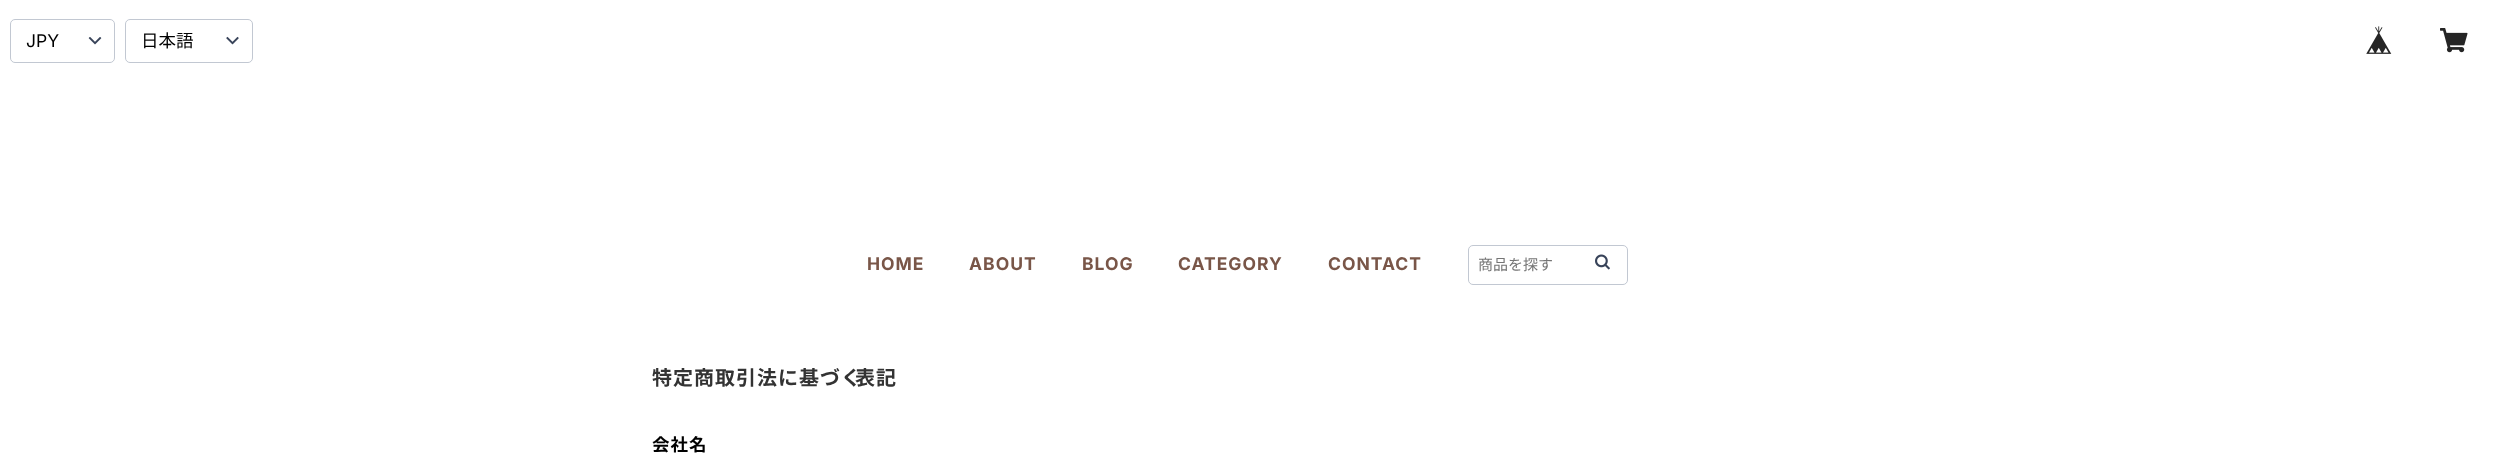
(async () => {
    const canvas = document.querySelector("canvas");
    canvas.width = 2493;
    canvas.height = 471;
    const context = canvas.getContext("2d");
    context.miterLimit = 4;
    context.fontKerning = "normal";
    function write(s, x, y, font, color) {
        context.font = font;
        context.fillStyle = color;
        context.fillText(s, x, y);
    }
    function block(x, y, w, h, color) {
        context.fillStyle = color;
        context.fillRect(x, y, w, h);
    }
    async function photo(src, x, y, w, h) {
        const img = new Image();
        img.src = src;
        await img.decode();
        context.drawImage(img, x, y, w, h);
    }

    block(0, 0, 2493, 471, "rgb(255, 255, 255)");
    context.beginPath();
    context.roundRect(10.5, 19.5, 104, 43, 4.5);
    context.strokeStyle = "rgb(194, 200, 210)";
    context.stroke();
    write("JPY", 26, 47, "17.5px Inter", "rgb(0, 0, 0)");
    await photo("media/1.png", 88, 37, 14, 8);
    context.beginPath();
    context.roundRect(125.5, 19.5, 127, 43, 4.5);
    context.stroke();
    write("日本語", 141, 47, "17.5px Noto Sans JP", "rgb(0, 0, 0)");
    await photo("media/2.png", 226, 36, 13, 9);
    await photo("media/3.png", 2366, 26, 26, 28);
    await photo("media/4.png", 2440, 28, 28, 25);
    context.letterSpacing = "1px";
    write("HOME", 867, 270, "bold 17.5px Inter", "rgb(121, 86, 72)");
    write("ABOUT", 969, 270, "bold 17.5px Inter", "rgb(121, 86, 72)");
    write("BLOG", 1082, 270, "bold 17.5px Inter", "rgb(121, 86, 72)");
    write("CATEGORY", 1178, 270, "bold 17.5px Inter", "rgb(121, 86, 72)");
    write("CONTACT", 1328, 270, "bold 17.5px Inter", "rgb(121, 86, 72)");
    context.beginPath();
    context.roundRect(1468.5, 245.5, 159, 39, 4.5);
    context.stroke();
    context.letterSpacing = "0px";
    write("商品を探す", 1478, 270, "15px Noto Sans JP", "rgb(117, 117, 117)");
    await photo("media/5.png", 1595, 254, 15, 16);
    context.letterSpacing = "1px";
    write("特定商取引法に基づく", 652, 385, "bold 20px Noto Sans JP", "rgb(51, 51, 51)");
    write("表記", 855, 385, "bold 20px Noto Sans JP", "rgb(51, 51, 51)");
    write("会社名", 652, 451, "bold 17.5px Noto Sans JP", "rgb(0, 0, 0)");
})();
